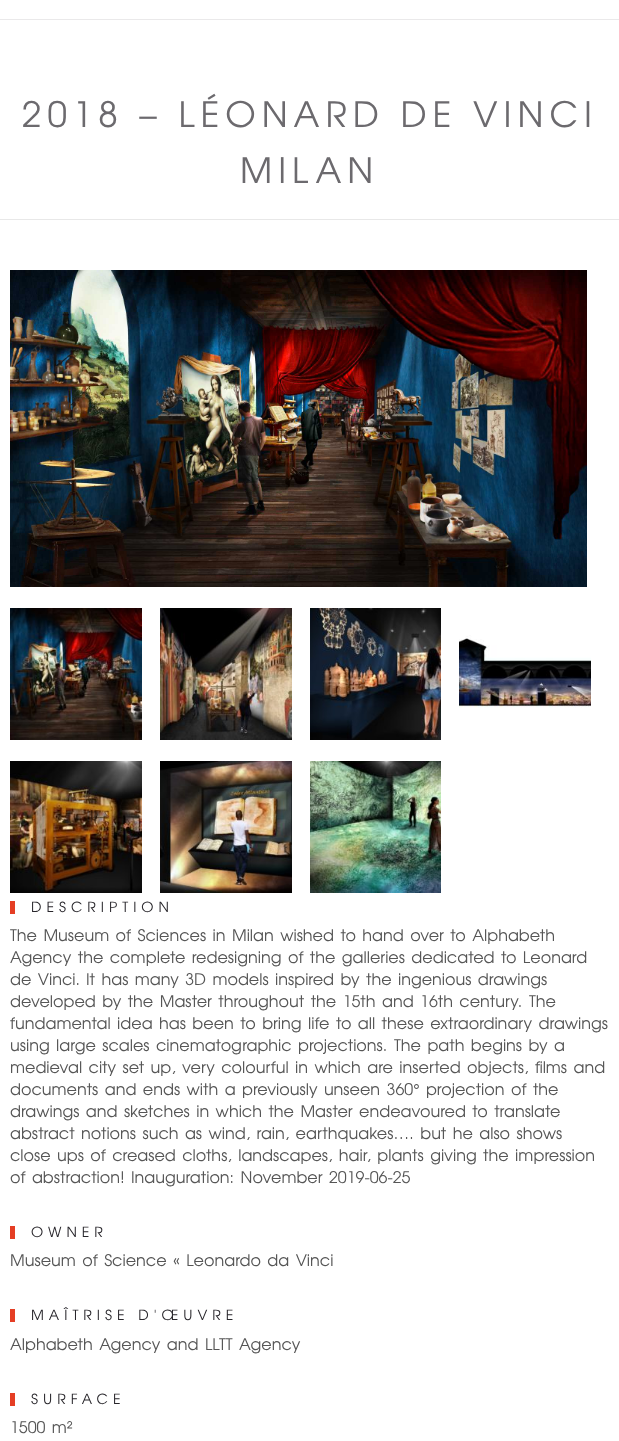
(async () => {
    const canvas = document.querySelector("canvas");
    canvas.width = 619;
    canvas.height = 1441;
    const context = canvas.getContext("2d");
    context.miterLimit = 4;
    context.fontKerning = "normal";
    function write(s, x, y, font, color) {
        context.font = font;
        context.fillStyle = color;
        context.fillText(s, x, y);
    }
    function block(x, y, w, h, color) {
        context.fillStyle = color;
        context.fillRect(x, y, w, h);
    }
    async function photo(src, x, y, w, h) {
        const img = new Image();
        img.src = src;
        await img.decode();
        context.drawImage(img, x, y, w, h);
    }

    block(0, 0, 619, 1441, "rgb(255, 255, 255)");
    block(0, 19, 619, 1, "rgb(234, 233, 234)");
    context.letterSpacing = "6px";
    write("2018 – LÉONARD DE VINCI", 22, 127, "35px TeX Gyre Adventor", "rgb(108, 106, 110)");
    write("MILAN", 240, 183, "35px TeX Gyre Adventor", "rgb(108, 106, 110)");
    block(0, 219, 619, 1, "rgb(232, 232, 232)");
    await photo("media/1.png", 10, 270, 577, 317);
    await photo("media/2.png", 10, 608, 132, 132);
    await photo("media/3.png", 160, 608, 132, 132);
    await photo("media/4.png", 310, 608, 131, 132);
    await photo("media/5.png", 459, 635, 132, 73);
    await photo("media/6.png", 10, 761, 132, 132);
    await photo("media/7.png", 160, 761, 132, 132);
    await photo("media/8.png", 310, 761, 131, 132);
    block(10, 901, 5, 13, "rgb(229, 62, 36)");
    context.letterSpacing = "5px";
    write("DESCRIPTION", 31, 912, "14px TeX Gyre Adventor", "rgb(40, 38, 43)");
    context.letterSpacing = "0px";
    context.wordSpacing = "2px";
    write("The Museum of Sciences in Milan wished to hand over to Alphabeth", 10, 941, "16px TeX Gyre Adventor", "rgb(86, 86, 86)");
    write("Agency the complete redesigning of the galleries dedicated to Leonard", 10, 963, "16px TeX Gyre Adventor", "rgb(86, 86, 86)");
    write("de Vinci.", 10, 985, "16px TeX Gyre Adventor", "rgb(86, 86, 86)");
    write("It has many 3D models inspired by the ingenious drawings", 86, 985, "16px TeX Gyre Adventor", "rgb(86, 86, 86)");
    write("developed by the Master throughout the 15th and 16th century.", 10, 1007, "16px TeX Gyre Adventor", "rgb(86, 86, 86)");
    context.wordSpacing = "0px";
    write("The", 529, 1007, "16px TeX Gyre Adventor", "rgb(86, 86, 86)");
    context.wordSpacing = "2px";
    write("fundamental idea has been to bring life to all these extraordinary drawings", 10, 1029, "16px TeX Gyre Adventor", "rgb(86, 86, 86)");
    write("using large scales cinematographic projections.", 10, 1051, "16px TeX Gyre Adventor", "rgb(86, 86, 86)");
    write("The path begins by a", 394, 1051, "16px TeX Gyre Adventor", "rgb(86, 86, 86)");
    write("medieval city set up, very colourful in which are inserted objects, films and", 10, 1073, "16px TeX Gyre Adventor", "rgb(86, 86, 86)");
    write("documents and ends with a previously unseen 360° projection of the", 10, 1095, "16px TeX Gyre Adventor", "rgb(86, 86, 86)");
    write("drawings and sketches in which the Master endeavoured to translate", 10, 1117, "16px TeX Gyre Adventor", "rgb(86, 86, 86)");
    write("abstract notions such as wind, rain, earthquakes…. but he also shows", 10, 1139, "16px TeX Gyre Adventor", "rgb(86, 86, 86)");
    write("close ups of creased cloths, landscapes, hair, plants giving the impression", 10, 1161, "16px TeX Gyre Adventor", "rgb(86, 86, 86)");
    write("of abstraction!", 10, 1183, "16px TeX Gyre Adventor", "rgb(86, 86, 86)");
    write("Inauguration: November 2019-06-25", 131, 1183, "16px TeX Gyre Adventor", "rgb(86, 86, 86)");
    block(10, 1226, 5, 13, "rgb(229, 62, 36)");
    context.letterSpacing = "5px";
    context.wordSpacing = "0px";
    write("OWNER", 31, 1237, "14px TeX Gyre Adventor", "rgb(40, 38, 43)");
    context.letterSpacing = "0px";
    context.wordSpacing = "2px";
    write("Museum of Science « Leonardo da Vinci", 10, 1266, "16px TeX Gyre Adventor", "rgb(86, 86, 86)");
    block(10, 1309, 5, 13, "rgb(229, 62, 36)");
    context.letterSpacing = "5px";
    context.wordSpacing = "0px";
    write("MAÎTRISE D'ŒUVRE", 31, 1320, "14px TeX Gyre Adventor", "rgb(40, 38, 43)");
    context.letterSpacing = "0px";
    context.wordSpacing = "2px";
    write("Alphabeth Agency and LLTT Agency", 10, 1350, "16px TeX Gyre Adventor", "rgb(86, 86, 86)");
    block(10, 1393, 5, 13, "rgb(229, 62, 36)");
    context.letterSpacing = "5px";
    context.wordSpacing = "0px";
    write("SURFACE", 31, 1404, "14px TeX Gyre Adventor", "rgb(40, 38, 43)");
    context.letterSpacing = "0px";
    context.wordSpacing = "2px";
    write("1500 m²", 10, 1433, "16px TeX Gyre Adventor", "rgb(86, 86, 86)");
})();
